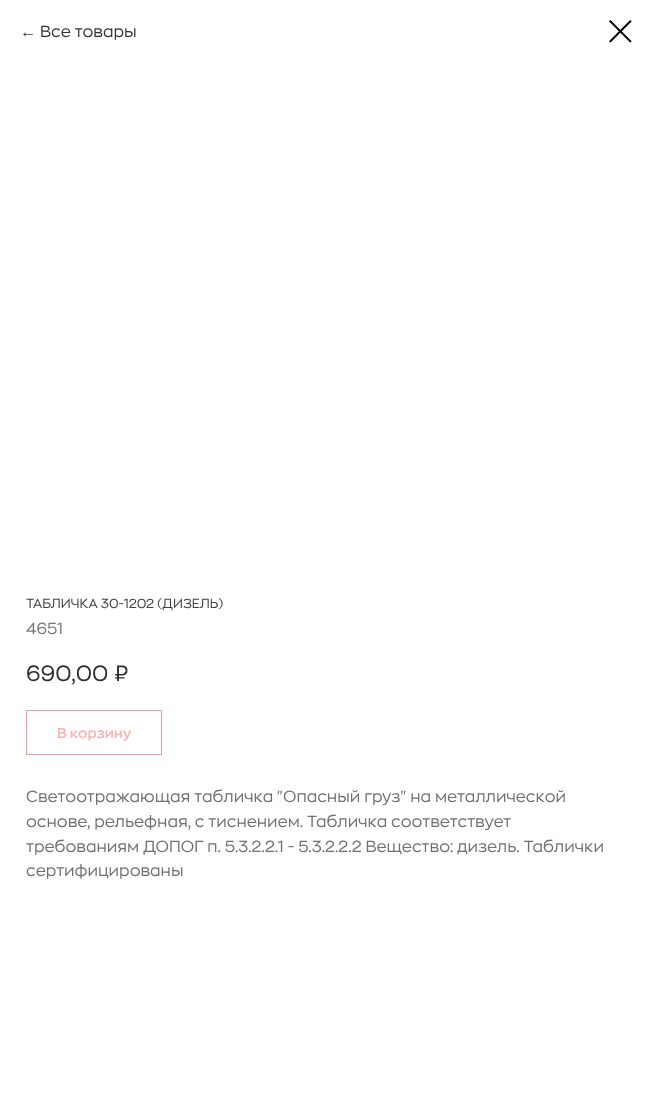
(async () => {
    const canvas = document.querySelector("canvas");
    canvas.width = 652;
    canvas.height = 1097;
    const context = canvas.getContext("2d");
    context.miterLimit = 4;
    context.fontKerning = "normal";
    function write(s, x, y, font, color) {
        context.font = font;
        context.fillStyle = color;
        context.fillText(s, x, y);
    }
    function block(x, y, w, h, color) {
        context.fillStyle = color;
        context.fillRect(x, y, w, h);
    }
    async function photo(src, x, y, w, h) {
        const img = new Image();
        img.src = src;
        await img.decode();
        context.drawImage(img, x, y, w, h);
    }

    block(0, 0, 652, 1097, "rgb(255, 255, 255)");
    write("←", 20, 37, "16px Liberation Sans", "rgb(51, 51, 51)");
    write("Все товары", 40, 37, "16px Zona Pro", "rgb(51, 51, 51)");
    await photo("media/1.png", 609, 20, 23, 23);
    write("ТАБЛИЧКА 30-1202 (ДИЗЕЛЬ)", 26, 608, "13px Zona Pro", "rgb(65, 65, 65)");
    write("4651", 26, 634, "16px Zona Pro", "rgb(119, 119, 119)");
    write("690,00", 26, 681, "22px Zona Pro", "rgb(45, 45, 45)");
    write("₽", 114, 681, "22px Zona Pro", "rgb(45, 45, 45)");
    context.strokeStyle = "rgb(247, 154, 154)";
    context.strokeRect(26.5, 710.5, 135, 44);
    write("В корзину", 57, 738, "600 14px Zona Pro", "rgb(249, 179, 179)");
    write("Светоотражающая табличка \"Опасный груз\" на металлической", 26, 802, "16px Zona Pro", "rgb(111, 111, 111)");
    write("основе, рельефная, с тиснением. Табличка соответствует", 26, 827, "16px Zona Pro", "rgb(111, 111, 111)");
    write("требованиям ДОПОГ п. 5.3.2.2.1 - 5.3.2.2.2 Вещество: дизель. Таблички", 26, 852, "16px Zona Pro", "rgb(111, 111, 111)");
    write("сертифицированы", 26, 876, "16px Zona Pro", "rgb(111, 111, 111)");
})();
